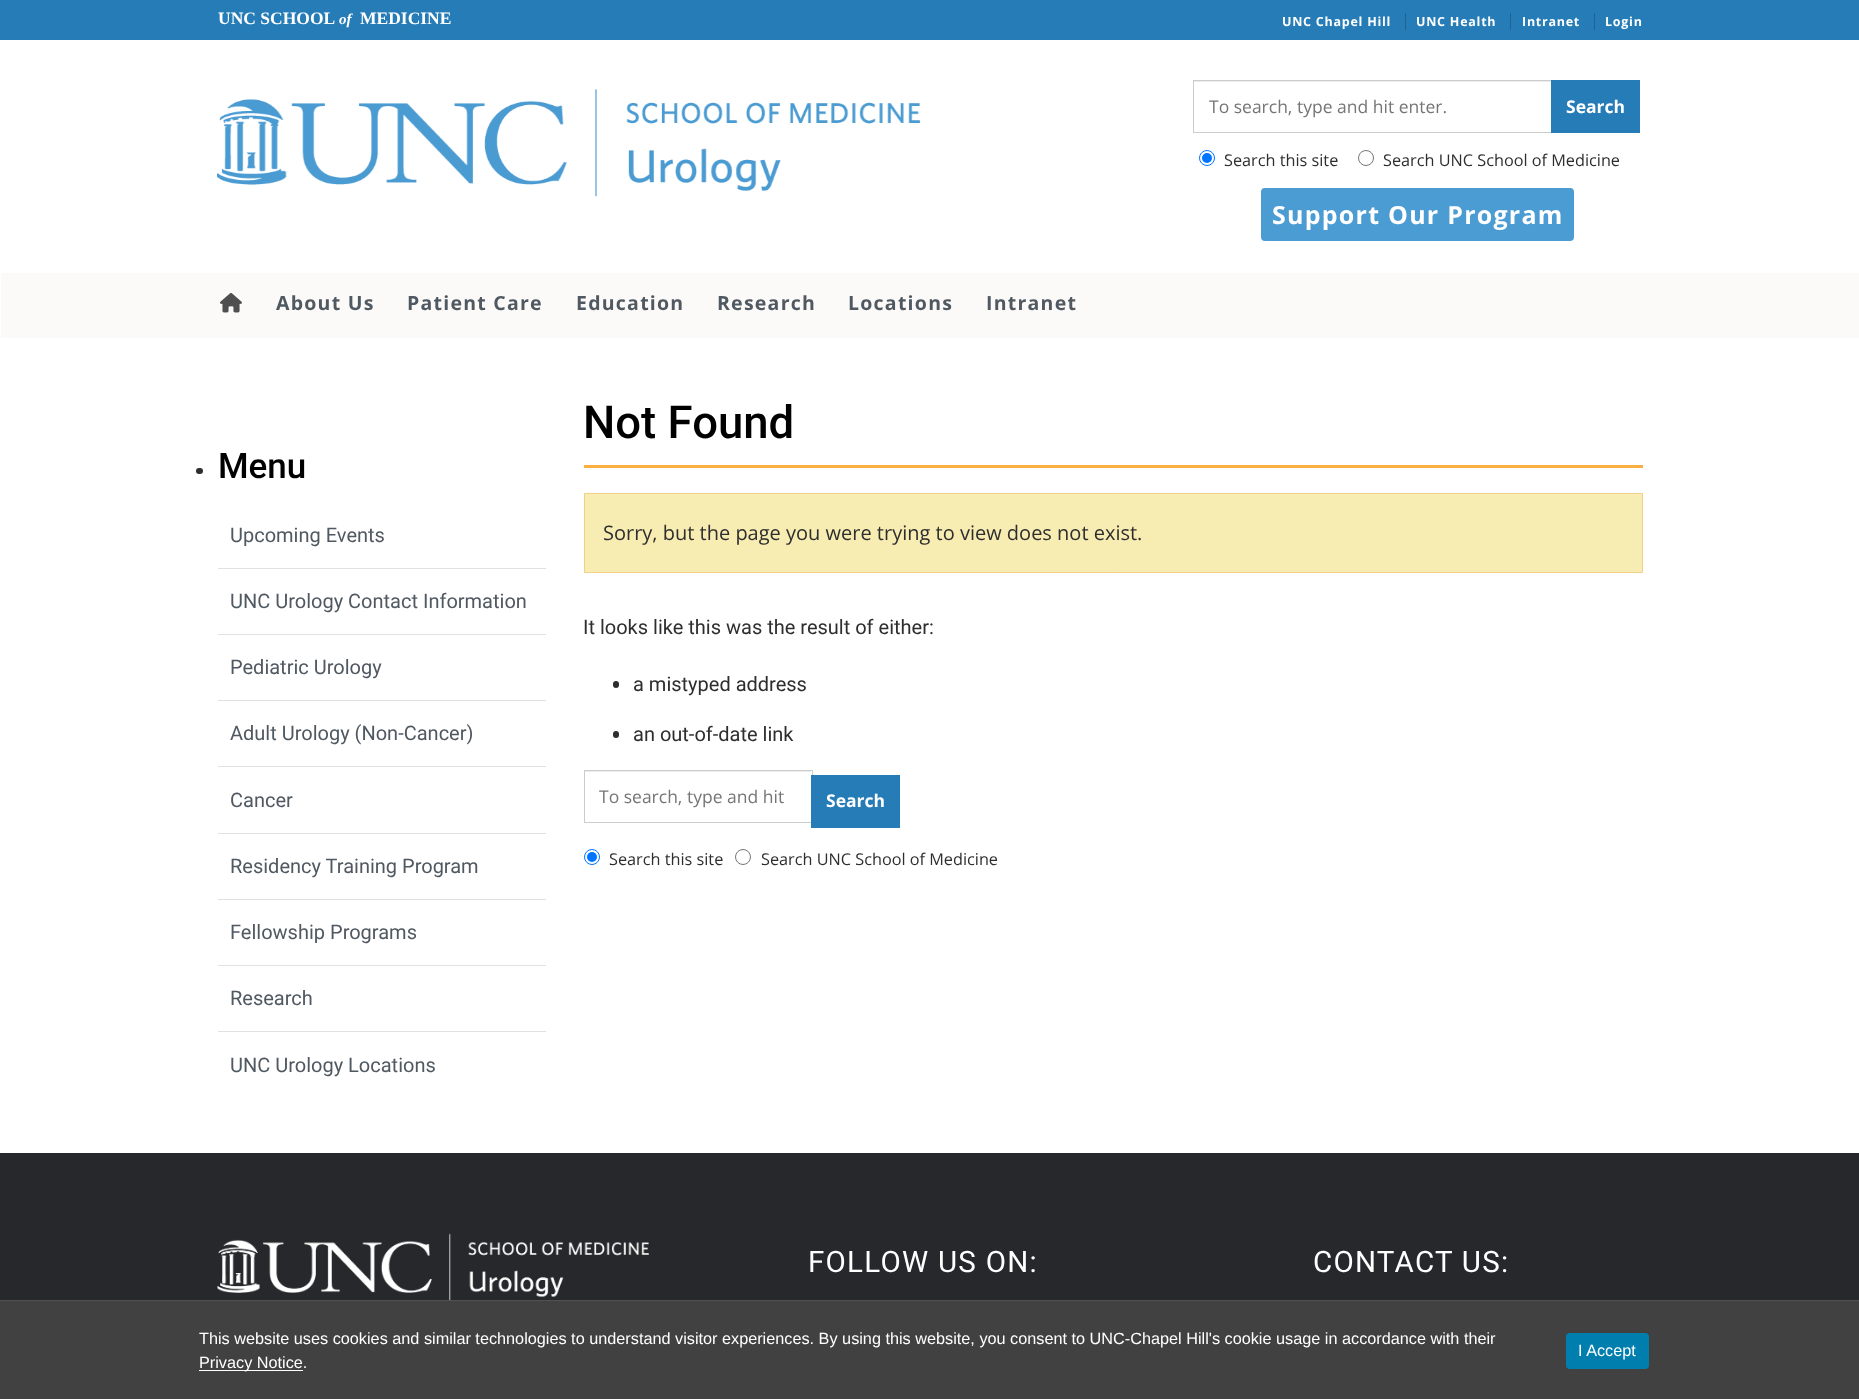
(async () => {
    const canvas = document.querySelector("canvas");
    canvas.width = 1859;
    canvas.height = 1399;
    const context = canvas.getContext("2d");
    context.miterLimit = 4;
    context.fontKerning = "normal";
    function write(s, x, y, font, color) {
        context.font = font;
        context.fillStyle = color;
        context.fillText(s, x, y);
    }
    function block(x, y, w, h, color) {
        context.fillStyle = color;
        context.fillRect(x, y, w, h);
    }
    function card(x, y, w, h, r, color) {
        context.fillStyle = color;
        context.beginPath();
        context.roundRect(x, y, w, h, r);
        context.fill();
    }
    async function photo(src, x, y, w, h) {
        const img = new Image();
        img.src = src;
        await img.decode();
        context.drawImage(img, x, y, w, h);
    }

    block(0, 0, 1859, 1399, "rgb(255, 255, 255)");
    block(0, 0, 1859, 40, "rgb(37, 124, 183)");
    write("UNC SCHOOL", 218, 24, "bold 17.5px Liberation Serif", "rgb(255, 255, 255)");
    write("of", 339, 24, "italic bold 15px Liberation Serif", "rgb(255, 255, 255)");
    write("MEDICINE", 360, 24, "bold 17.5px Liberation Serif", "rgb(255, 255, 255)");
    context.letterSpacing = "0.75px";
    write("UNC Chapel Hill", 1282, 26, "bold 12.5px Open Sans", "rgb(255, 255, 255)");
    block(1405, 13, 1, 17, "rgb(30, 99, 146)");
    write("UNC Health", 1416, 26, "bold 12.5px Open Sans", "rgb(255, 255, 255)");
    block(1510, 13, 1, 17, "rgb(30, 99, 146)");
    write("Intranet", 1522, 26, "bold 12.5px Open Sans", "rgb(255, 255, 255)");
    block(1594, 13, 1, 17, "rgb(30, 99, 146)");
    write("Login", 1605, 26, "bold 12.5px Open Sans", "rgb(255, 255, 255)");
    await photo("media/1.png", 217, 89, 704, 108);
    block(1194, 81, 357, 1, "rgb(236, 236, 236)");
    context.strokeStyle = "rgb(204, 204, 204)";
    context.strokeRect(1193.5, 80.5, 359, 52);
    context.letterSpacing = "0px";
    write("To search, type and hit enter.", 1209, 113, "17.5px Open Sans", "rgb(118, 118, 118)");
    block(1551, 80, 89, 53, "rgb(37, 124, 183)");
    write("Search", 1566, 113, "bold 17.5px Open Sans", "rgb(255, 255, 255)");
    context.beginPath();
    context.arc(1207, 158, 7.5, 0, Math.PI * 2);
    context.strokeStyle = "rgb(0, 117, 255)";
    context.stroke();
    context.fillStyle = "rgb(0, 117, 255)";
    context.beginPath();
    context.arc(1207, 158, 5, 0, Math.PI * 2);
    context.fill();
    write("Search this site", 1224, 166, "16.25px Open Sans", "rgb(46, 46, 46)");
    context.beginPath();
    context.arc(1366, 158, 7.5, 0, Math.PI * 2);
    context.strokeStyle = "rgb(118, 118, 118)";
    context.stroke();
    write("Search UNC School of Medicine", 1383, 166, "16.25px Open Sans", "rgb(46, 46, 46)");
    context.fillStyle = "rgb(75, 156, 211)";
    context.beginPath();
    context.roundRect(1263, 190, 309, 49, 2);
    context.fill();
    context.strokeStyle = "rgb(75, 156, 211)";
    context.lineWidth = 4;
    context.stroke();
    context.letterSpacing = "1.25px";
    write("Support Our Program", 1272, 224, "bold 25px Open Sans", "rgb(255, 255, 255)");
    context.fillStyle = "rgba(189, 189, 189, 0.75)";
    context.filter = "blur(0.5px)";
    context.beginPath();
    context.rect(1, 273, 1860, 65);
    context.fill();
    context.filter = "none";
    block(1, 273, 1858, 65, "rgb(251, 250, 248)");
    await photo("media/2.png", 220, 292, 22, 21);
    write("About Us", 276, 310, "bold 19.5px Open Sans", "rgb(80, 89, 98)");
    write("Patient Care", 407, 310, "bold 19.5px Open Sans", "rgb(80, 89, 98)");
    write("Education", 576, 310, "bold 19.5px Open Sans", "rgb(80, 89, 98)");
    write("Research", 717, 310, "bold 19.5px Open Sans", "rgb(80, 89, 98)");
    write("Locations", 848, 310, "bold 19.5px Open Sans", "rgb(80, 89, 98)");
    write("Intranet", 986, 310, "bold 19.5px Open Sans", "rgb(80, 89, 98)");
    card(196, 468, 7, 6, 3, "rgb(46, 46, 46)");
    context.letterSpacing = "0px";
    write("Menu", 218, 478, "500 35px Roboto", "rgb(0, 0, 0)");
    block(218, 568, 328, 1, "rgb(225, 225, 225)");
    write("Upcoming Events", 230, 542, "20px Roboto", "rgb(80, 89, 98)");
    block(218, 634, 328, 1, "rgb(225, 225, 225)");
    write("UNC Urology Contact Information", 230, 608, "20px Roboto", "rgb(80, 89, 98)");
    block(218, 700, 328, 1, "rgb(225, 225, 225)");
    write("Pediatric Urology", 230, 674, "20px Roboto", "rgb(80, 89, 98)");
    block(218, 766, 328, 1, "rgb(225, 225, 225)");
    write("Adult Urology (Non-Cancer)", 230, 740, "20px Roboto", "rgb(80, 89, 98)");
    block(218, 833, 328, 1, "rgb(225, 225, 225)");
    write("Cancer", 230, 807, "20px Roboto", "rgb(80, 89, 98)");
    block(218, 899, 328, 1, "rgb(225, 225, 225)");
    write("Residency Training Program", 230, 873, "20px Roboto", "rgb(80, 89, 98)");
    block(218, 965, 328, 1, "rgb(225, 225, 225)");
    write("Fellowship Programs", 230, 939, "20px Roboto", "rgb(80, 89, 98)");
    block(218, 1031, 328, 1, "rgb(225, 225, 225)");
    write("Research", 230, 1005, "20px Roboto", "rgb(80, 89, 98)");
    write("UNC Urology Locations", 230, 1072, "20px Roboto", "rgb(80, 89, 98)");
    block(584, 465, 1059, 3, "rgb(251, 175, 65)");
    write("Not Found", 583, 438, "500 45.5px Roboto", "rgb(0, 0, 0)");
    context.fillStyle = "rgb(247, 236, 178)";
    context.beginPath();
    context.rect(584.5, 493.5, 1058, 79);
    context.fill();
    context.strokeStyle = "rgb(243, 207, 135)";
    context.lineWidth = 1;
    context.stroke();
    write("Sorry, but the page you were trying to view does not exist.", 603, 540, "20px Open Sans", "rgb(46, 46, 46)");
    write("It looks like this was the result of either:", 583, 634, "20px Roboto", "rgb(46, 46, 46)");
    card(613, 681, 6, 7, 3, "rgb(46, 46, 46)");
    write("a mistyped address", 633, 691, "20px Roboto", "rgb(46, 46, 46)");
    card(613, 731, 6, 7, 3, "rgb(46, 46, 46)");
    write("an out-of-date link", 633, 741, "20px Roboto", "rgb(46, 46, 46)");
    block(585, 771, 226, 1, "rgb(236, 236, 236)");
    context.strokeStyle = "rgb(204, 204, 204)";
    context.strokeRect(584.5, 770.5, 228, 52);
    write("To search, type and hit", 599, 803, "17.5px Open Sans", "rgb(118, 118, 118)");
    block(811, 775, 89, 53, "rgb(37, 124, 183)");
    write("Search", 826, 807, "bold 17.5px Open Sans", "rgb(255, 255, 255)");
    context.beginPath();
    context.arc(592, 857, 7.5, 0, Math.PI * 2);
    context.strokeStyle = "rgb(0, 117, 255)";
    context.stroke();
    context.fillStyle = "rgb(0, 117, 255)";
    context.beginPath();
    context.arc(592, 857, 5, 0, Math.PI * 2);
    context.fill();
    write("Search this site", 609, 865, "16.25px Open Sans", "rgb(46, 46, 46)");
    context.beginPath();
    context.arc(743, 857, 7.5, 0, Math.PI * 2);
    context.strokeStyle = "rgb(118, 118, 118)";
    context.stroke();
    write("Search UNC School of Medicine", 761, 865, "16.25px Open Sans", "rgb(46, 46, 46)");
    block(0, 1153, 1859, 147, "rgb(38, 40, 43)");
    await photo("media/3.png", 217, 1233, 432, 67);
    context.letterSpacing = "1.25px";
    write("FOLLOW US ON:", 808, 1272, "29.5px Roboto", "rgb(255, 255, 255)");
    write("CONTACT US:", 1313, 1272, "29.5px Roboto", "rgb(255, 255, 255)");
    block(0, 1301, 1859, 98, "rgb(65, 65, 65)");
    block(0, 1300, 1859, 1, "rgb(81, 81, 81)");
    context.letterSpacing = "0px";
    write("This website uses cookies and similar technologies to understand visitor experiences. By using this website, you consent to UNC-Chapel Hill's cookie usage in accordance with their", 199, 1344, "16.25px Liberation Sans", "rgb(255, 255, 255)");
    block(199, 1370, 104, 1, "rgb(255, 255, 255)");
    write("Privacy Notice.", 199, 1368, "16.25px Liberation Sans", "rgb(255, 255, 255)");
    card(1566, 1333, 83, 36, 4, "rgb(0, 127, 174)");
    write("I Accept", 1578, 1356, "16.25px Liberation Sans", "rgb(255, 255, 255)");
})();
